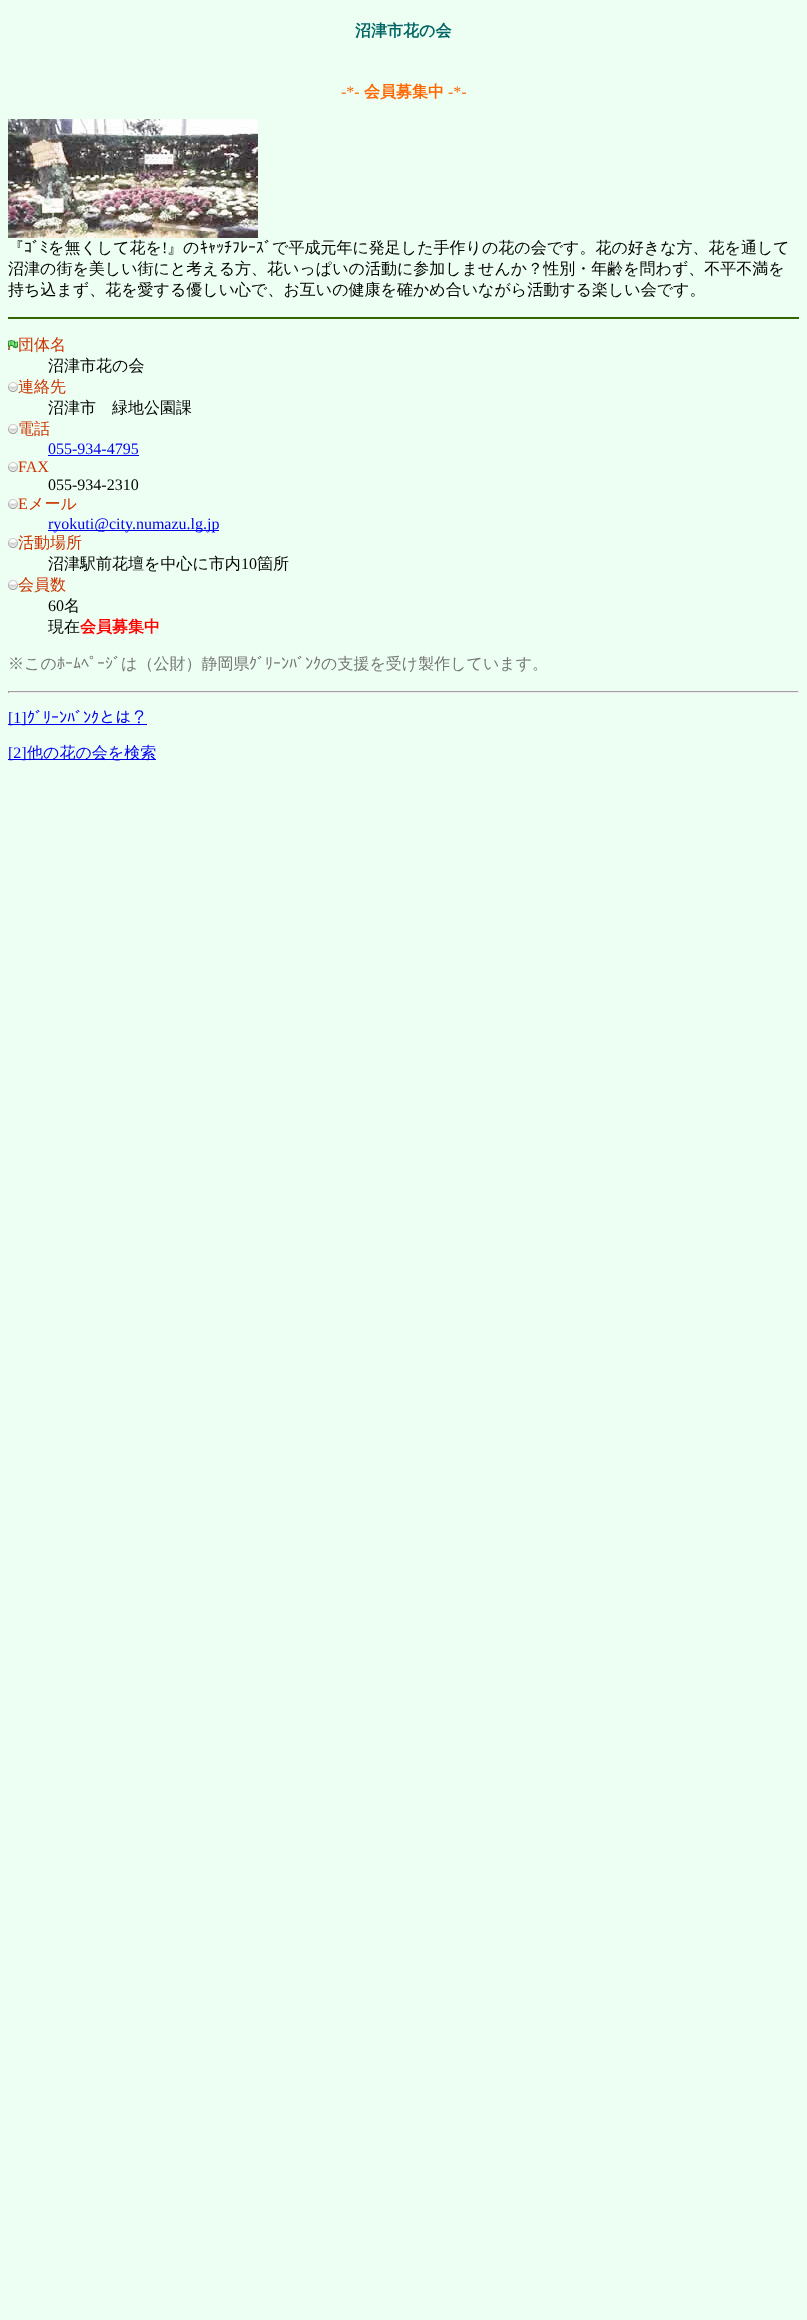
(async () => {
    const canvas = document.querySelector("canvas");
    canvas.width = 807;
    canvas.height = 2320;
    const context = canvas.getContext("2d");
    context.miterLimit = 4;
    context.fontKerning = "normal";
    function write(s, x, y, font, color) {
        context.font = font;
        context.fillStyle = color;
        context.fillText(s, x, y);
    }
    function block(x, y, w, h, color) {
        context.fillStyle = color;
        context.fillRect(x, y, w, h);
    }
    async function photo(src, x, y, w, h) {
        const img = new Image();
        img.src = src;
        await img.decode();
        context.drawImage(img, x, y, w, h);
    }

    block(0, 0, 807, 2320, "rgb(236, 255, 242)");
    write("沼津市花の会", 355, 36, "bold 16px WenQuanYi Zen Hei", "rgb(0, 100, 100)");
    write("-*-", 341, 97, "16px Liberation Serif", "rgb(255, 102, 0)");
    write("会員募集中", 364, 97, "bold 16px WenQuanYi Zen Hei", "rgb(255, 102, 0)");
    write("-*-", 448, 97, "16px Liberation Serif", "rgb(255, 102, 0)");
    await photo("media/1.png", 8, 119, 250, 119);
    write("『", 8, 253, "500 16px WenQuanYi Zen Hei", "rgb(0, 0, 0)");
    write("ｺﾞﾐ", 24, 253, "16px IPAGothic", "rgb(0, 0, 0)");
    write("を無くして花を", 48, 253, "500 16px WenQuanYi Zen Hei", "rgb(0, 0, 0)");
    write("!", 162, 253, "16px Liberation Serif", "rgb(0, 0, 0)");
    write("』の", 167, 253, "500 16px WenQuanYi Zen Hei", "rgb(0, 0, 0)");
    write("ｷｬｯﾁﾌﾚｰｽﾞ", 200, 253, "16px IPAGothic", "rgb(0, 0, 0)");
    write("で平成元年に発足した手作りの花の会です。花の好きな方、花を通して", 272, 253, "500 16px WenQuanYi Zen Hei", "rgb(0, 0, 0)");
    write("沼津の街を美しい街にと考える方、花いっぱいの活動に参加しませんか？性別・年齢を問わず、不平不満を", 8, 274, "500 16px WenQuanYi Zen Hei", "rgb(0, 0, 0)");
    write("持ち込まず、花を愛する優しい心で、お互いの健康を確かめ合いながら活動する楽しい会です。", 8, 295, "500 16px WenQuanYi Zen Hei", "rgb(0, 0, 0)");
    block(8, 317, 791, 2, "rgb(51, 102, 0)");
    await photo("media/2.png", 8, 340, 10, 10);
    write("団体名", 18, 350, "500 16px WenQuanYi Zen Hei", "rgb(204, 51, 0)");
    write("沼津市花の会", 48, 371, "500 16px WenQuanYi Zen Hei", "rgb(0, 0, 0)");
    await photo("media/3.png", 8, 382, 10, 10);
    write("連絡先", 18, 392, "500 16px WenQuanYi Zen Hei", "rgb(204, 51, 0)");
    write("沼津市　緑地公園課", 48, 413, "500 16px WenQuanYi Zen Hei", "rgb(0, 0, 0)");
    await photo("media/3.png", 8, 424, 10, 10);
    write("電話", 18, 434, "500 16px WenQuanYi Zen Hei", "rgb(204, 51, 0)");
    write("055-934-4795", 48, 454, "16px Liberation Serif", "rgb(0, 0, 238)");
    block(48, 455, 91, 1, "rgb(0, 0, 238)");
    await photo("media/3.png", 8, 462, 10, 10);
    write("FAX", 18, 472, "16px Liberation Serif", "rgb(204, 51, 0)");
    write("055-934-2310", 48, 490, "16px Liberation Serif", "rgb(0, 0, 0)");
    await photo("media/3.png", 8, 499, 10, 10);
    write("E", 18, 509, "16px Liberation Serif", "rgb(204, 51, 0)");
    write("メール", 28, 509, "500 16px WenQuanYi Zen Hei", "rgb(204, 51, 0)");
    block(48, 530, 171, 1, "rgb(0, 0, 238)");
    write("ryokuti@city.numazu.lg.jp", 48, 529, "16px Liberation Serif", "rgb(0, 0, 238)");
    await photo("media/3.png", 8, 538, 10, 10);
    write("活動場所", 18, 548, "500 16px WenQuanYi Zen Hei", "rgb(204, 51, 0)");
    write("沼津駅前花壇を中心に市内", 48, 569, "500 16px WenQuanYi Zen Hei", "rgb(0, 0, 0)");
    write("10", 241, 569, "16px Liberation Serif", "rgb(0, 0, 0)");
    write("箇所", 257, 569, "500 16px WenQuanYi Zen Hei", "rgb(0, 0, 0)");
    await photo("media/3.png", 8, 580, 10, 10);
    write("会員数", 18, 590, "500 16px WenQuanYi Zen Hei", "rgb(204, 51, 0)");
    write("60", 48, 611, "16px Liberation Serif", "rgb(0, 0, 0)");
    write("名", 64, 611, "500 16px WenQuanYi Zen Hei", "rgb(0, 0, 0)");
    write("現在", 48, 632, "500 16px WenQuanYi Zen Hei", "rgb(0, 0, 0)");
    write("会員募集中", 80, 632, "bold 16px WenQuanYi Zen Hei", "rgb(255, 0, 0)");
    write("※この", 8, 669, "500 16px WenQuanYi Zen Hei", "rgb(119, 119, 119)");
    write("ﾎｰﾑﾍﾟｰｼﾞ", 57, 669, "16px IPAGothic", "rgb(119, 119, 119)");
    write("は（公財）静岡県", 121, 669, "500 16px WenQuanYi Zen Hei", "rgb(119, 119, 119)");
    write("ｸﾞﾘｰﾝﾊﾞﾝｸ", 249, 669, "16px IPAGothic", "rgb(119, 119, 119)");
    write("の支援を受け製作しています。", 321, 669, "500 16px WenQuanYi Zen Hei", "rgb(119, 119, 119)");
    block(8, 691, 791, 1, "rgb(159, 159, 159)");
    block(798, 691, 1, 2, "rgb(238, 238, 238)");
    block(8, 692, 791, 1, "rgb(238, 238, 238)");
    block(8, 691, 1, 2, "rgb(159, 159, 159)");
    block(8, 724, 139, 1, "rgb(0, 0, 238)");
    write("[1]", 8, 723, "16px Liberation Serif", "rgb(0, 0, 238)");
    write("ｸﾞﾘｰﾝﾊﾞﾝｸとは？", 27, 723, "16px IPAGothic", "rgb(0, 0, 238)");
    block(8, 759, 148, 1, "rgb(0, 0, 238)");
    write("[2]", 8, 758, "16px Liberation Serif", "rgb(0, 0, 238)");
    write("他の花の会を検索", 27, 758, "500 16px WenQuanYi Zen Hei", "rgb(0, 0, 238)");
})();
